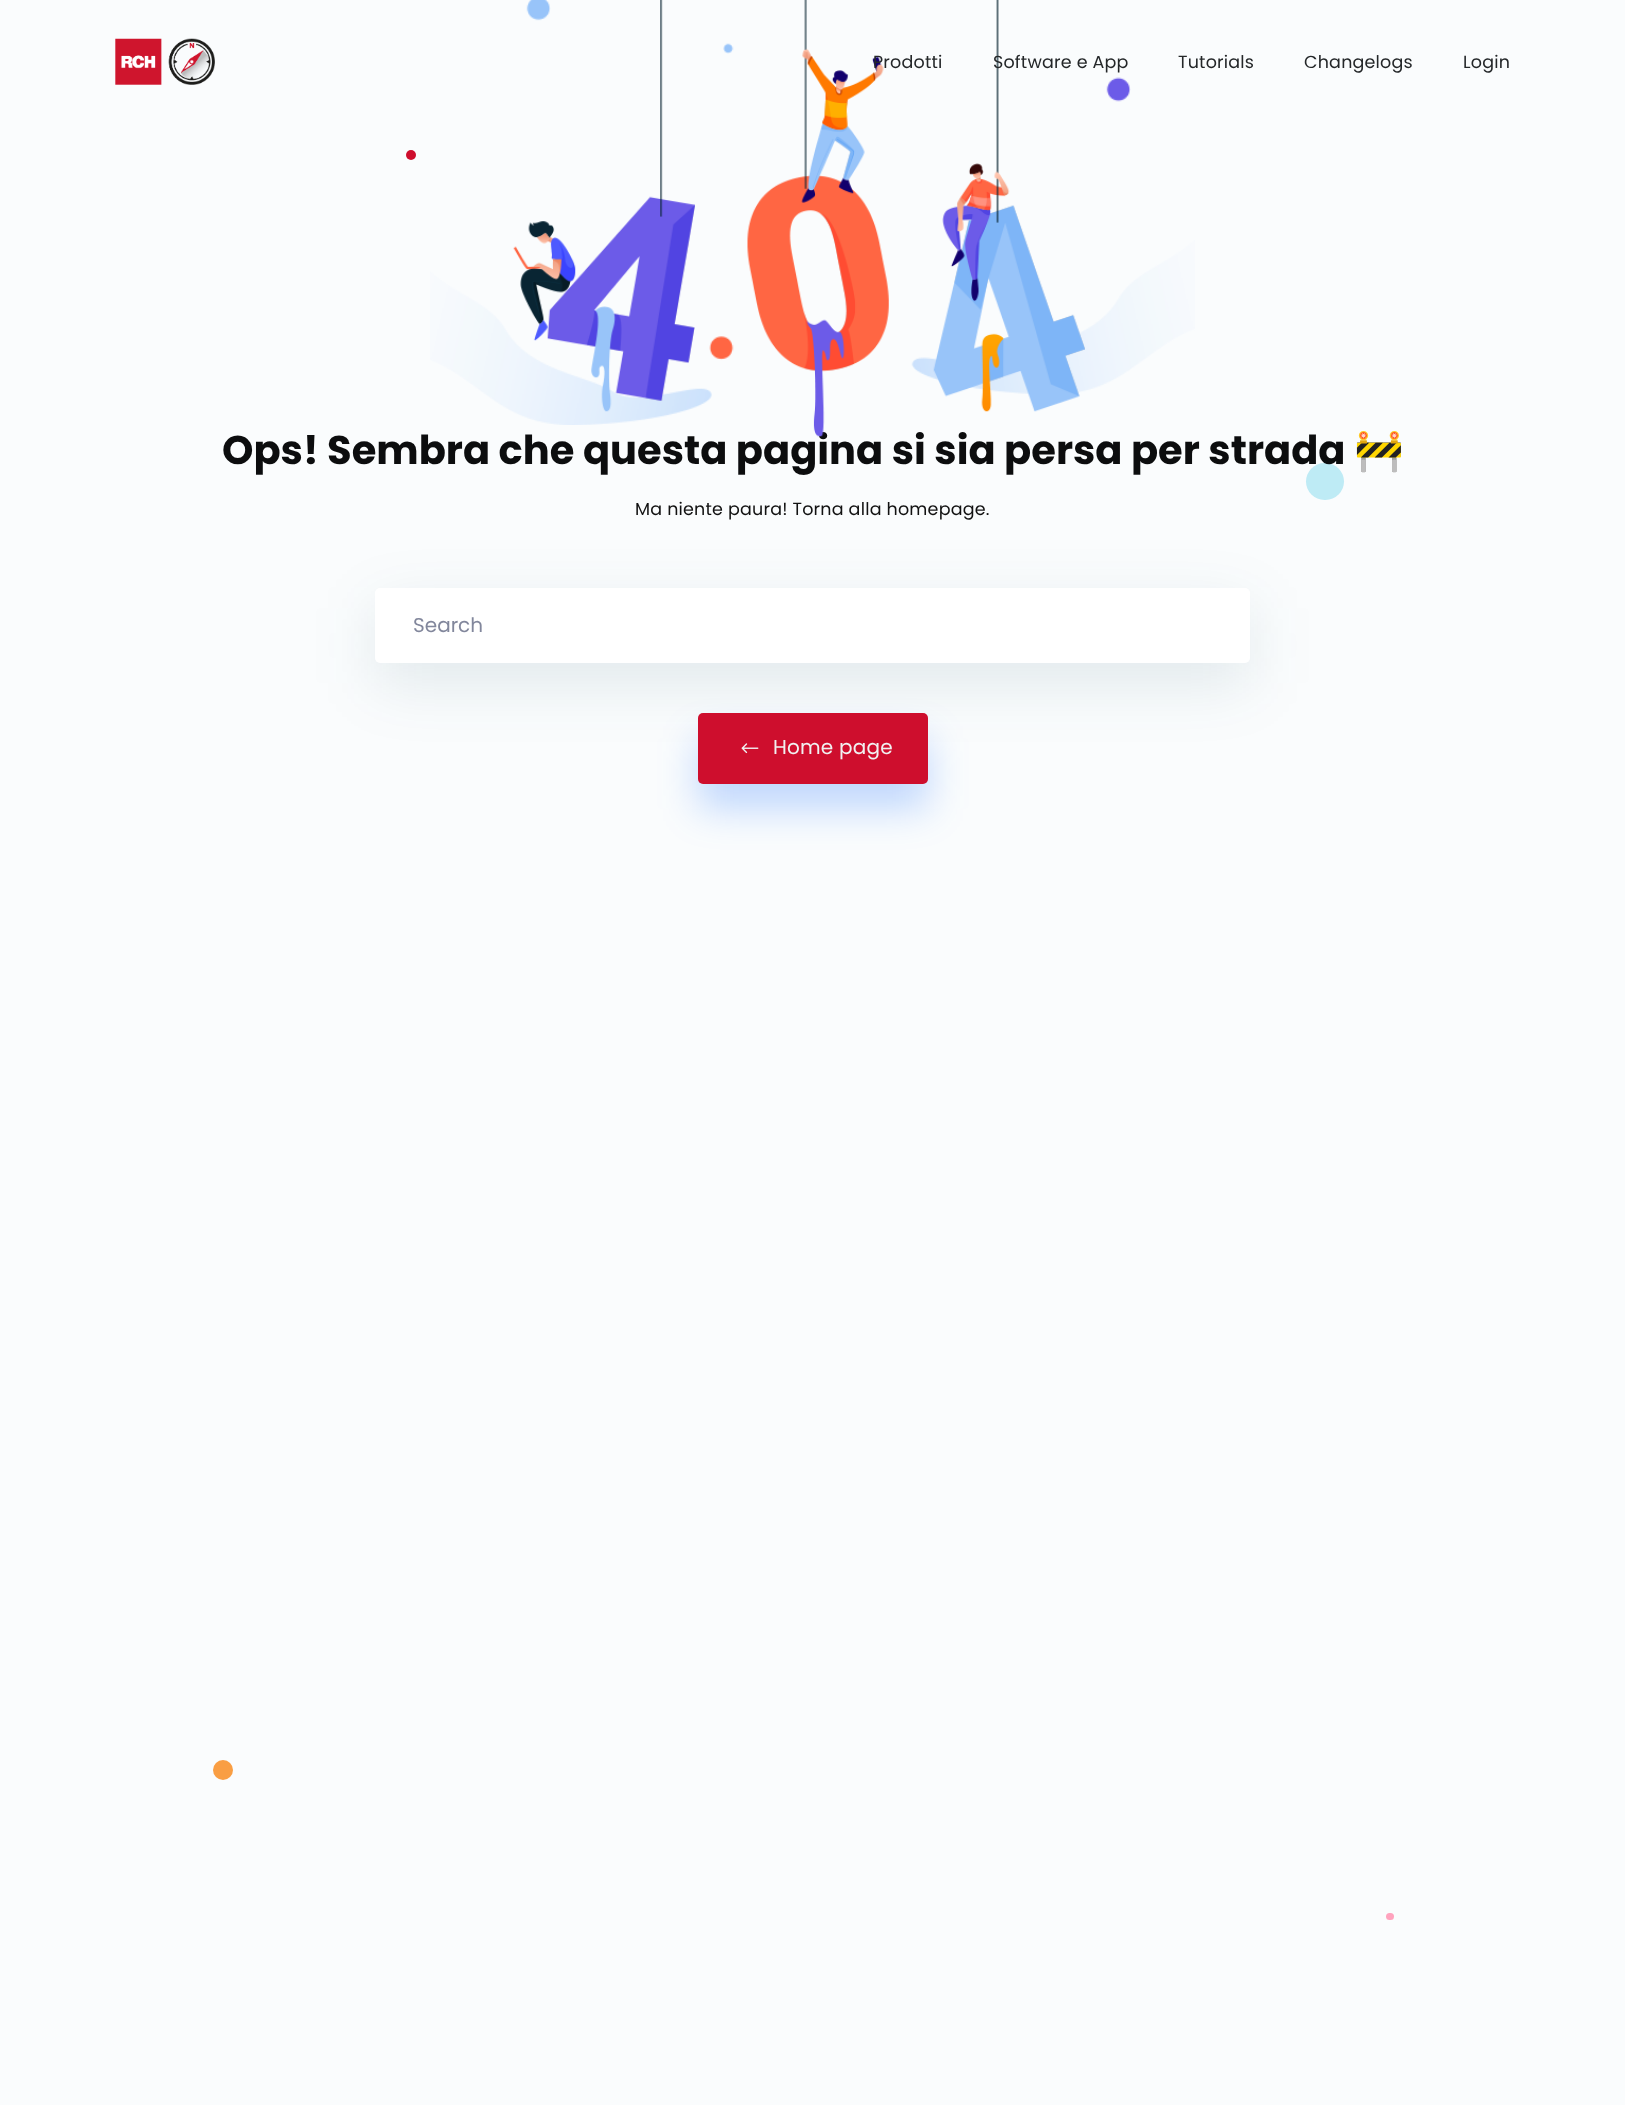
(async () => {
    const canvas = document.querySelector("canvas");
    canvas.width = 1625;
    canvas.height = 2105;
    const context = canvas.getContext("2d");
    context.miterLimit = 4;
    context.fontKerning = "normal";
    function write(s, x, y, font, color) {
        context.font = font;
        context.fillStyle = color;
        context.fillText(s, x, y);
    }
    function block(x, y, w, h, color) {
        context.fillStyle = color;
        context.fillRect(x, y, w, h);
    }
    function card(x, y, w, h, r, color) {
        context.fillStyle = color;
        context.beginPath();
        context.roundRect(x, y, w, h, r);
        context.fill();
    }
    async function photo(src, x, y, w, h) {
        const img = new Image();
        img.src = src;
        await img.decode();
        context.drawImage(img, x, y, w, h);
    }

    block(0, 0, 1625, 2105, "rgb(250, 252, 253)");
    await photo("media/1.png", 115, 38, 100, 47);
    await photo("media/2.png", 430, 0, 765, 425);
    card(1306, 463, 38, 37, 18.5, "rgb(190, 235, 245)");
    write("Ops! Sembra che questa pagina si sia persa per strada", 222, 464, "bold 40px Poppins", "rgb(12, 13, 14)");
    await photo("media/4.png", 747, 0, 142, 437);
    await photo("media/5.png", 933, 0, 152, 412);
    context.letterSpacing = "0.2px";
    write("Prodotti", 873, 68, "17.5px Poppins", "rgb(36, 39, 41)");
    write("Software e App", 993, 68, "17.5px Poppins", "rgb(36, 39, 41)");
    write("Tutorials", 1178, 68, "17.5px Poppins", "rgb(36, 39, 41)");
    write("Changelogs", 1304, 68, "17.5px Poppins", "rgb(36, 39, 41)");
    write("Login", 1463, 68, "17.5px Poppins", "rgb(36, 39, 41)");
    context.fillStyle = "rgb(206, 14, 45)";
    context.beginPath();
    context.arc(411, 155, 5, 0, Math.PI * 2);
    context.fill();
    await photo("media/3.png", 513, 0, 182, 412);
    context.letterSpacing = "0px";
    write("🚧", 1354, 464, "bold 40px Noto Color Emoji", "rgb(12, 13, 14)");
    context.fillStyle = "rgba(3, 62, 75, 0.1)";
    context.filter = "blur(31px)";
    context.beginPath();
    context.roundRect(375, 608, 875, 75, 5);
    context.fill();
    context.filter = "none";
    context.letterSpacing = "0.2px";
    write("Ma niente paura! Torna alla homepage.", 635, 515, "17.5px Poppins", "rgb(18, 18, 18)");
    card(375, 588, 875, 75, 5, "rgb(255, 255, 255)");
    context.letterSpacing = "0px";
    write("Search", 413, 632, "20px Poppins", "rgb(130, 135, 156)");
    context.fillStyle = "rgba(8, 102, 255, 0.24)";
    context.filter = "blur(19px)";
    context.beginPath();
    context.roundRect(698, 738, 230, 71, 5);
    context.fill();
    context.filter = "none";
    card(698, 713, 230, 71, 5, "rgb(206, 14, 45)");
    await photo("media/6.png", 741, 743, 18, 11);
    context.letterSpacing = "0.2px";
    write("Home page", 773, 754, "20px Poppins", "rgb(241, 241, 241)");
    context.fillStyle = "rgb(249, 158, 67)";
    context.beginPath();
    context.arc(223, 1770, 10, 0, Math.PI * 2);
    context.fill();
    card(1386, 1913, 8, 7, 3.5, "rgb(255, 163, 190)");
})();
